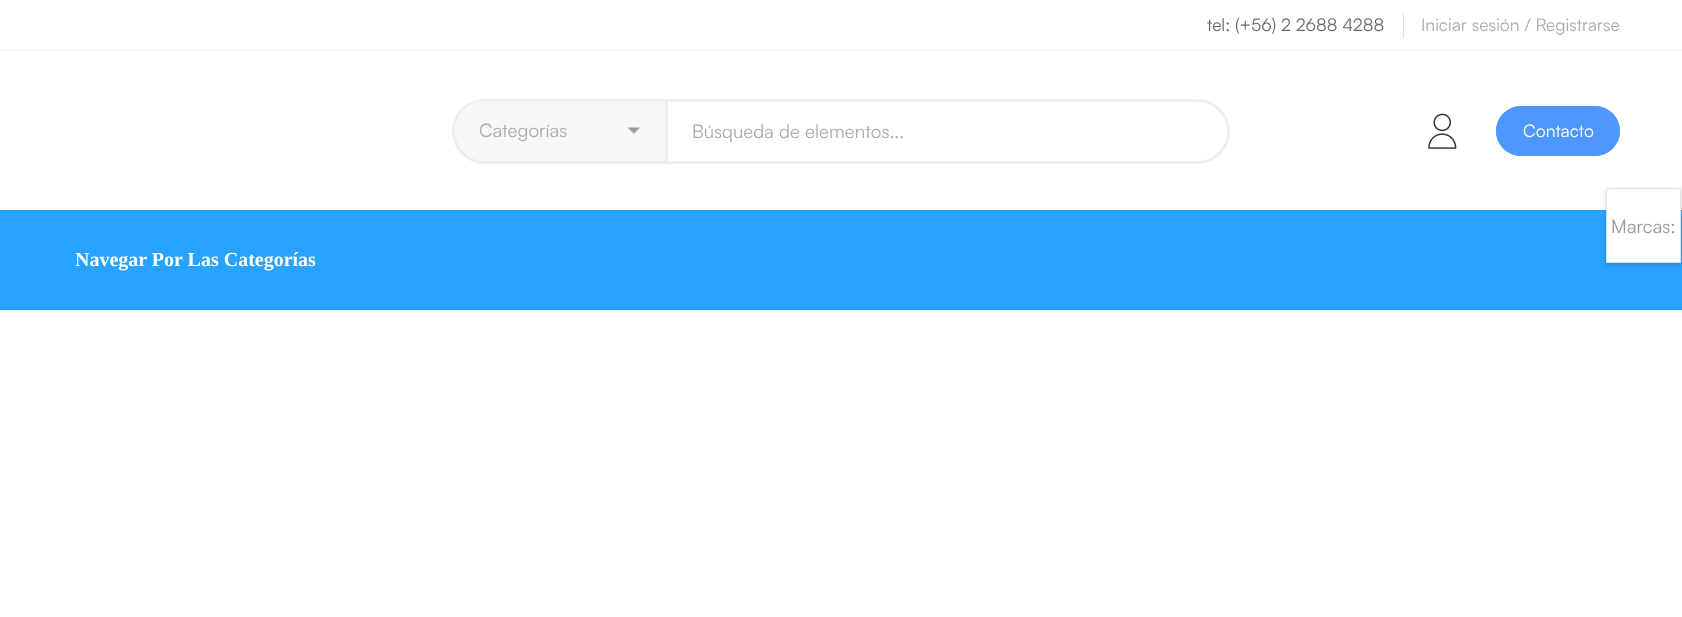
(async () => {
    const canvas = document.querySelector("canvas");
    canvas.width = 1682;
    canvas.height = 617;
    const context = canvas.getContext("2d");
    context.miterLimit = 4;
    context.fontKerning = "normal";
    function write(s, x, y, font, color) {
        context.font = font;
        context.fillStyle = color;
        context.fillText(s, x, y);
    }
    function block(x, y, w, h, color) {
        context.fillStyle = color;
        context.fillRect(x, y, w, h);
    }
    function card(x, y, w, h, r, color) {
        context.fillStyle = color;
        context.beginPath();
        context.roundRect(x, y, w, h, r);
        context.fill();
    }
    async function photo(src, x, y, w, h) {
        const img = new Image();
        img.src = src;
        await img.decode();
        context.drawImage(img, x, y, w, h);
    }

    block(0, 0, 1682, 617, "rgb(255, 255, 255)");
    block(0, 50, 1682, 1, "rgb(238, 238, 238)");
    write("tel: (+56) 2 2688 4288", 1207, 31, "17.5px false", "rgb(105, 105, 105)");
    block(1403, 13, 1, 25, "rgb(222, 223, 226)");
    write("Iniciar sesión / Registrarse", 1421, 31, "17.5px false", "rgb(171, 171, 171)");
    context.fillStyle = "rgb(248, 248, 248)";
    context.beginPath();
    context.roundRect(453, 99, 212, 65, [32.5, 0, 0, 32.5]);
    context.fill();
    await photo("media/1.png", 627, 127, 13, 7);
    context.fillStyle = "rgb(238, 238, 238)";
    context.beginPath();
    context.moveTo(485, 99);
    context.lineTo(665, 99);
    context.lineTo(665, 164);
    context.lineTo(485, 164);
    context.bezierCurveTo(467, 164, 452, 149, 452, 131);
    context.bezierCurveTo(452, 113, 467, 99, 485, 99);
    context.closePath();
    context.moveTo(485, 101);
    context.lineTo(665, 101);
    context.lineTo(665, 161);
    context.lineTo(485, 161);
    context.bezierCurveTo(468, 161, 455, 148, 455, 131);
    context.bezierCurveTo(455, 115, 468, 101, 485, 101);
    context.closePath();
    context.fill("evenodd");
    write("Categorías", 479, 137, "18.75px false", "rgb(171, 171, 171)");
    context.beginPath();
    context.roundRect(666.5, 100.5, 562, 62, [0, 31, 31, 0]);
    context.strokeStyle = "rgb(238, 238, 238)";
    context.lineWidth = 3;
    context.stroke();
    write("Búsqueda de elementos...", 692, 138, "18.75px false", "rgb(171, 171, 171)");
    await photo("media/2.png", 1428, 113, 29, 36);
    context.beginPath();
    context.roundRect(1496.5, 106.5, 123, 49, 24.5);
    context.strokeStyle = "rgb(78, 151, 253)";
    context.lineWidth = 1;
    context.stroke();
    card(1496, 106, 124, 50, 25, "rgb(78, 151, 253)");
    write("Contacto", 1523, 137, "17.5px false", "rgb(255, 255, 255)");
    block(0, 210, 1682, 100, "rgb(40, 162, 255)");
    write("Navegar Por Las Categorías", 75, 266, "bold 20px Liberation Serif", "rgb(255, 255, 255)");
    context.fillStyle = "rgba(0, 0, 0, 0.15)";
    context.filter = "blur(2px)";
    context.beginPath();
    context.rect(1606, 190, 75, 75);
    context.fill();
    context.filter = "none";
    context.fillStyle = "rgb(255, 255, 255)";
    context.beginPath();
    context.rect(1606.5, 188.5, 74, 74);
    context.fill();
    context.strokeStyle = "rgb(225, 225, 225)";
    context.stroke();
    write("Marcas:", 1611, 233, "18.75px false", "rgb(153, 153, 153)");
})();
